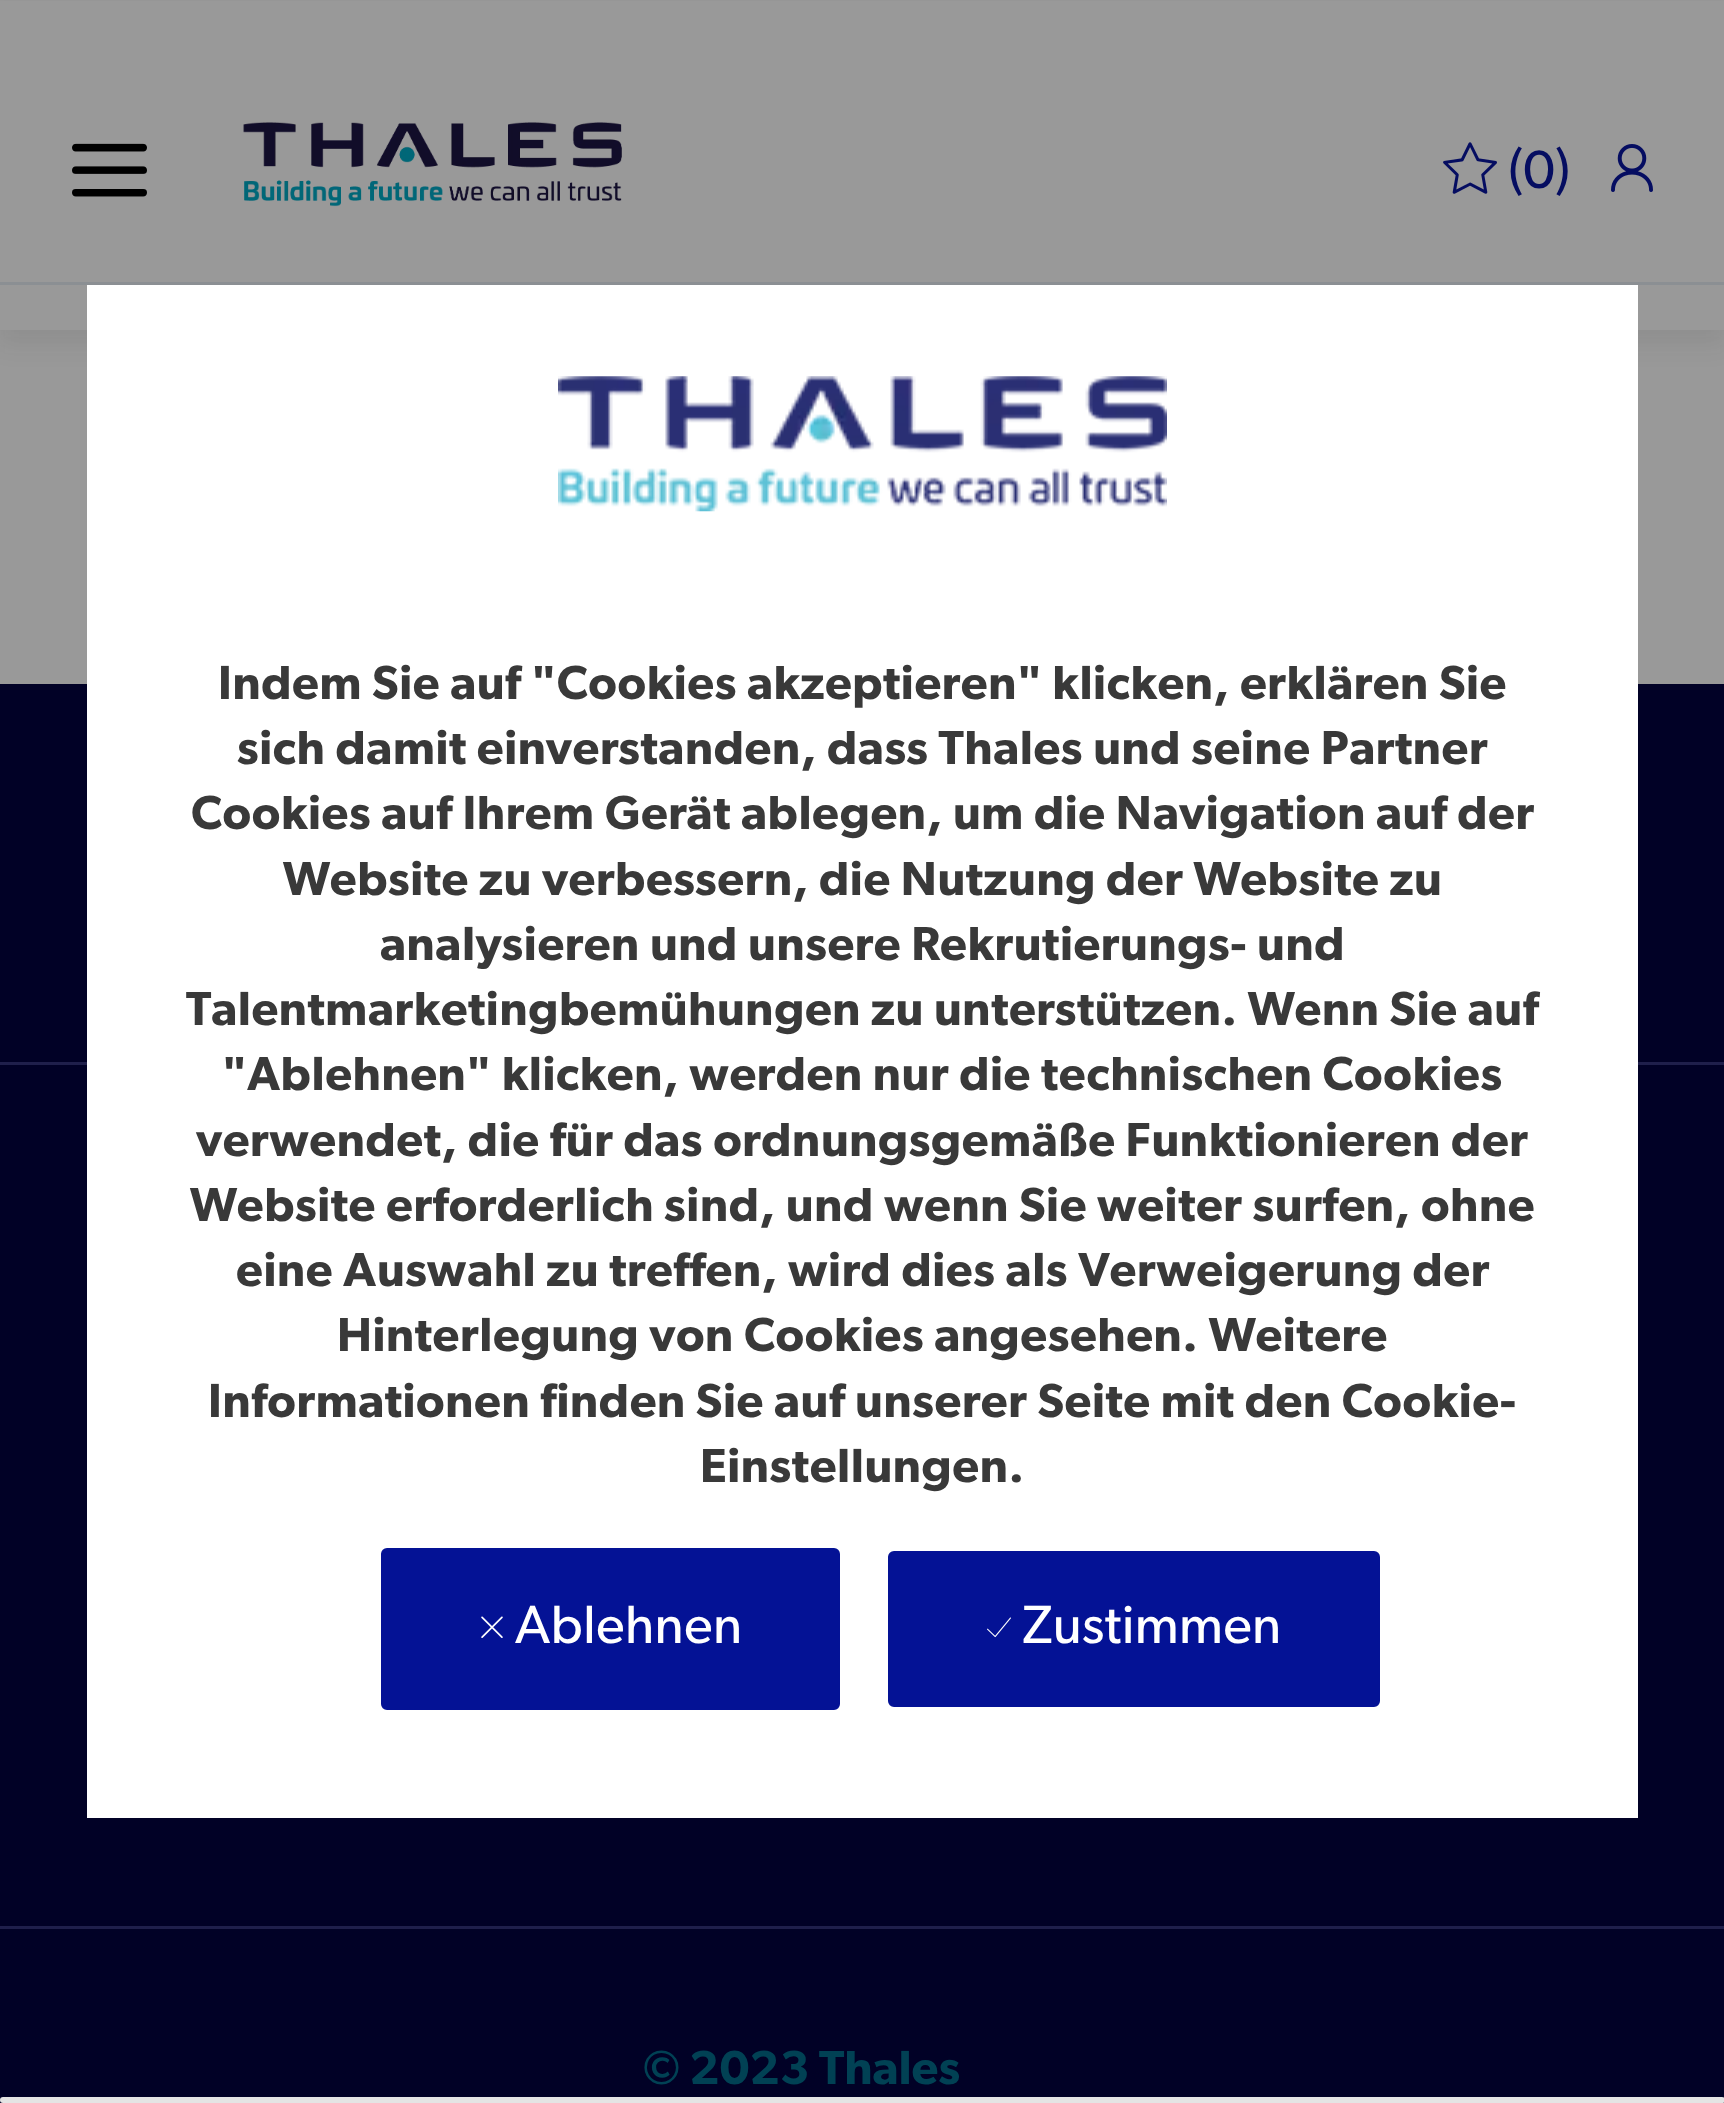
(async () => {
    const canvas = document.querySelector("canvas");
    canvas.width = 1724;
    canvas.height = 2103;
    const context = canvas.getContext("2d");
    context.miterLimit = 4;
    context.fontKerning = "normal";
    function write(s, x, y, font, color) {
        context.font = font;
        context.fillStyle = color;
        context.fillText(s, x, y);
    }
    function block(x, y, w, h, color) {
        context.fillStyle = color;
        context.fillRect(x, y, w, h);
    }
    function card(x, y, w, h, r, color) {
        context.fillStyle = color;
        context.beginPath();
        context.roundRect(x, y, w, h, r);
        context.fill();
    }
    async function photo(src, x, y, w, h) {
        const img = new Image();
        img.src = src;
        await img.decode();
        context.drawImage(img, x, y, w, h);
    }

    block(0, 0, 1724, 2103, "rgb(153, 153, 153)");
    context.fillStyle = "rgba(20, 22, 26, 0.08)";
    context.filter = "blur(12px)";
    context.beginPath();
    context.rect(-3, 9, 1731, 336);
    context.fill();
    context.filter = "none";
    block(0, 1, 1724, 329, "rgb(153, 153, 153)");
    block(0, 282, 1724, 3, "rgb(139, 143, 147)");
    await photo("media/1.png", 72, 143, 75, 54);
    await photo("media/2.png", 243, 122, 379, 85);
    await photo("media/3.png", 1443, 142, 54, 52);
    write("(0)", 1508, 188, "54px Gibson", "rgb(5, 13, 97)");
    await photo("media/4.png", 1611, 144, 42, 48);
    block(0, 684, 1724, 378, "rgb(1, 1, 38)");
    block(0, 1065, 1724, 861, "rgb(1, 1, 38)");
    block(0, 1062, 1724, 3, "rgb(31, 31, 75)");
    block(87, 285, 1551, 1533, "rgb(255, 255, 255)");
    await photo("media/5.png", 558, 376, 609, 136);
    context.letterSpacing = "0.6px";
    write("Indem Sie auf \"Cookies akzeptieren\" klicken, erklären Sie", 218, 699, "600 48px Gibson", "rgb(57, 57, 57)");
    write("sich damit einverstanden, dass Thales und seine Partner", 237, 764, "600 48px Gibson", "rgb(57, 57, 57)");
    write("Cookies auf Ihrem Gerät ablegen, um die Navigation auf der", 191, 829, "600 48px Gibson", "rgb(57, 57, 57)");
    write("Website zu verbessern, die Nutzung der Website zu", 283, 895, "600 48px Gibson", "rgb(57, 57, 57)");
    write("analysieren und unsere Rekrutierungs- und", 380, 960, "600 48px Gibson", "rgb(57, 57, 57)");
    write("Talentmarketingbemühungen zu unterstützen. Wenn Sie auf", 186, 1025, "600 48px Gibson", "rgb(57, 57, 57)");
    write("\"Ablehnen\" klicken, werden nur die technischen Cookies", 222, 1090, "600 48px Gibson", "rgb(57, 57, 57)");
    write("verwendet, die für das ordnungsgemäße Funktionieren der", 196, 1156, "600 48px Gibson", "rgb(57, 57, 57)");
    write("Website erforderlich sind, und wenn Sie weiter surfen, ohne", 190, 1221, "600 48px Gibson", "rgb(57, 57, 57)");
    write("eine Auswahl zu treffen, wird dies als Verweigerung der", 236, 1286, "600 48px Gibson", "rgb(57, 57, 57)");
    write("Hinterlegung von Cookies angesehen. Weitere", 337, 1351, "600 48px Gibson", "rgb(57, 57, 57)");
    write("Informationen finden Sie auf unserer Seite mit den Cookie-", 208, 1417, "600 48px Gibson", "rgb(57, 57, 57)");
    write("Einstellungen.", 700, 1482, "600 48px Gibson", "rgb(57, 57, 57)");
    context.fillStyle = "rgb(4, 18, 149)";
    context.beginPath();
    context.roundRect(382.5, 1549.5, 456, 159, 4.5);
    context.fill();
    context.strokeStyle = "rgb(4, 18, 149)";
    context.lineWidth = 3;
    context.stroke();
    await photo("media/6.png", 481, 1616, 22, 22);
    context.letterSpacing = "0.25px";
    write("Ablehnen", 515, 1643, "54px Gibson", "rgb(255, 255, 255)");
    context.fillStyle = "rgb(4, 18, 149)";
    context.beginPath();
    context.roundRect(889.5, 1552.5, 489, 153, 4.5);
    context.fill();
    context.stroke();
    await photo("media/7.png", 987, 1617, 24, 21);
    write("Zustimmen", 1022, 1643, "54px Gibson", "rgb(255, 255, 255)");
    block(0, 1929, 1724, 174, "rgb(1, 1, 38)");
    card(0, 2097, 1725, 6, 3, "rgb(228, 228, 228)");
    block(0, 1926, 1724, 3, "rgb(31, 31, 75)");
    context.letterSpacing = "0px";
    write("© 2023 Thales", 643, 2084, "600 48px Gibson", "rgb(1, 65, 84)");
})();
